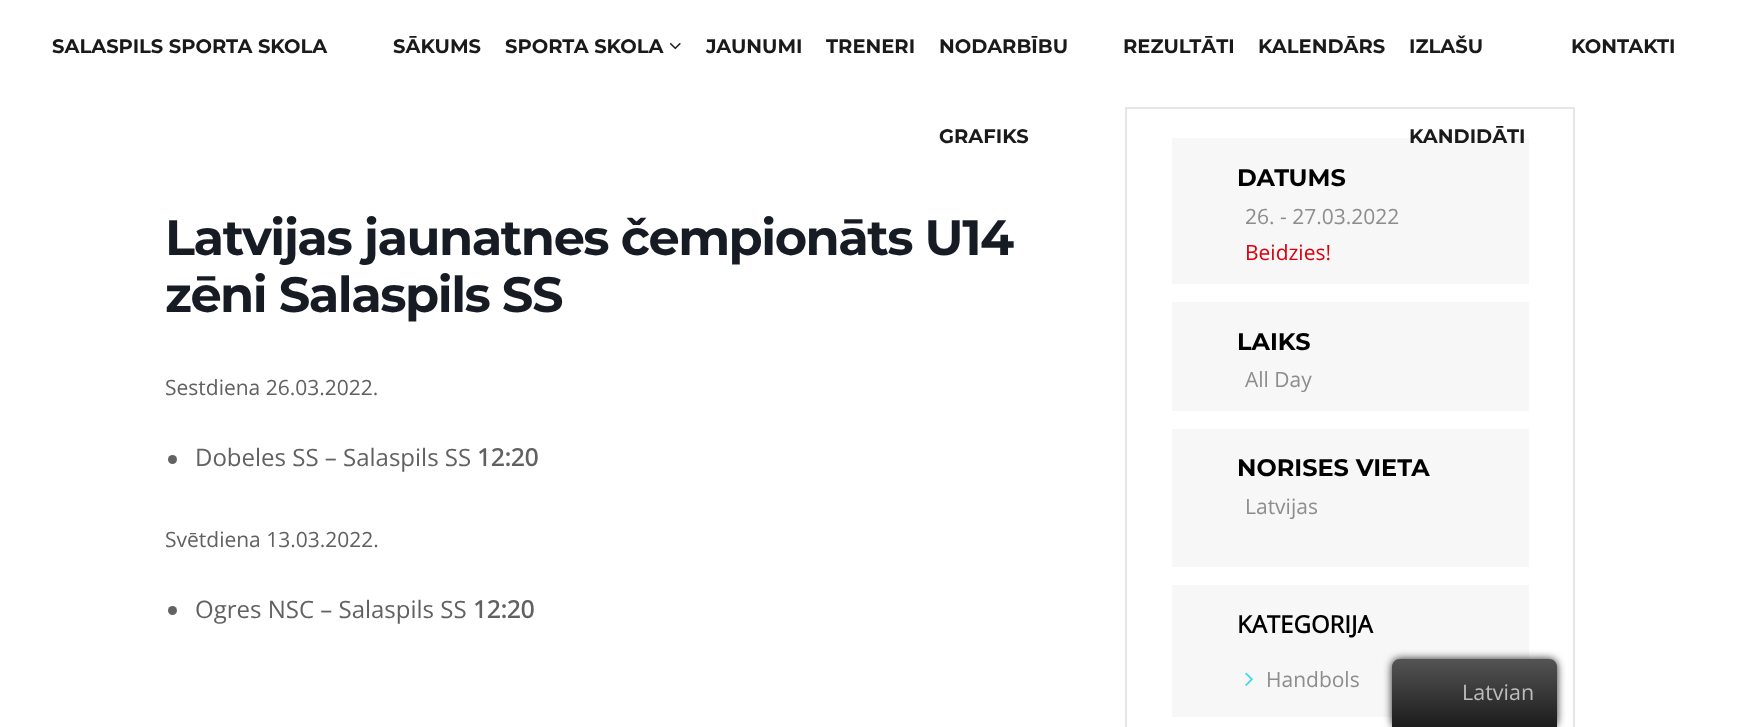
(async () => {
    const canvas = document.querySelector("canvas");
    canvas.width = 1740;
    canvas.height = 727;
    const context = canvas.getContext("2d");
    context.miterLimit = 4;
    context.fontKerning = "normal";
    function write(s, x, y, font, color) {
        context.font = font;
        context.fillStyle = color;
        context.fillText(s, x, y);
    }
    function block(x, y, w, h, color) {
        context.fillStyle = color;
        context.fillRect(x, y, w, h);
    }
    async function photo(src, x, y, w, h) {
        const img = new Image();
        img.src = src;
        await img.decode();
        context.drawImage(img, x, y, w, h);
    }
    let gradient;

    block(0, 0, 1740, 727, "rgb(255, 255, 255)");
    write("SALASPILS SPORTA SKOLA", 52, 53, "100 19.5px Montserrat", "rgb(26, 26, 26)");
    write("SĀKUMS", 393, 53, "100 19.5px Montserrat", "rgb(26, 26, 26)");
    write("SPORTA SKOLA", 505, 53, "100 19.5px Montserrat", "rgb(26, 26, 26)");
    await photo("media/1.png", 669, 42, 12, 8);
    write("JAUNUMI", 706, 53, "100 19.5px Montserrat", "rgb(26, 26, 26)");
    write("TRENERI", 826, 53, "100 19.5px Montserrat", "rgb(26, 26, 26)");
    write("NODARBĪBU", 939, 53, "100 19.5px Montserrat", "rgb(26, 26, 26)");
    write("GRAFIKS", 939, 143, "100 19.5px Montserrat", "rgb(26, 26, 26)");
    write("REZULTĀTI", 1123, 53, "100 19.5px Montserrat", "rgb(26, 26, 26)");
    write("KALENDĀRS", 1258, 53, "100 19.5px Montserrat", "rgb(26, 26, 26)");
    write("IZLAŠU", 1409, 53, "100 19.5px Montserrat", "rgb(26, 26, 26)");
    context.strokeStyle = "rgb(230, 230, 230)";
    context.lineWidth = 2;
    context.strokeRect(1126, 108, 448, 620);
    block(1172, 138, 357, 146, "rgb(247, 247, 247)");
    write("KANDIDĀTI", 1409, 143, "100 19.5px Montserrat", "rgb(26, 26, 26)");
    write("KONTAKTI", 1571, 53, "100 19.5px Montserrat", "rgb(26, 26, 26)");
    context.letterSpacing = "-1.5px";
    write("Latvijas jaunatnes čempionāts U14", 165, 255, "100 49.5px Montserrat", "rgb(23, 28, 36)");
    write("zēni Salaspils SS", 165, 312, "100 49.5px Montserrat", "rgb(23, 28, 36)");
    context.letterSpacing = "0px";
    write("Sestdiena 26.03.2022.", 165, 395, "21px Open Sans", "rgb(97, 97, 97)");
    context.fillStyle = "rgb(98, 98, 98)";
    context.beginPath();
    context.arc(172.5, 459.5, 4.5, 0, Math.PI * 2);
    context.fill();
    write("Dobeles SS – Salaspils SS", 195, 466, "24px Open Sans", "rgb(97, 97, 97)");
    write("12:20", 477, 466, "bold 24px Open Sans", "rgb(97, 97, 97)");
    write("Svētdiena 13.03.2022.", 165, 547, "21px Open Sans", "rgb(97, 97, 97)");
    context.fillStyle = "rgb(98, 98, 98)";
    context.beginPath();
    context.arc(172.5, 610.5, 4.5, 0, Math.PI * 2);
    context.fill();
    write("Ogres NSC – Salaspils SS", 195, 618, "24px Open Sans", "rgb(97, 97, 97)");
    write("12:20", 473, 618, "bold 24px Open Sans", "rgb(97, 97, 97)");
    write("DATUMS", 1237, 186, "100 24px Montserrat", "rgb(0, 0, 0)");
    write("26. - 27.03.2022", 1245, 224, "21px Open Sans", "rgb(141, 141, 141)");
    write("Beidzies!", 1245, 260, "21px Open Sans", "rgb(216, 0, 12)");
    block(1172, 302, 357, 109, "rgb(247, 247, 247)");
    write("LAIKS", 1237, 350, "100 24px Montserrat", "rgb(0, 0, 0)");
    write("All Day", 1245, 387, "21px Open Sans", "rgb(141, 141, 141)");
    block(1172, 429, 357, 138, "rgb(247, 247, 247)");
    write("NORISES VIETA", 1237, 476, "100 24px Montserrat", "rgb(0, 0, 0)");
    write("Latvijas", 1245, 514, "21px Open Sans", "rgb(141, 141, 141)");
    block(1172, 585, 357, 132, "rgb(247, 247, 247)");
    write("KATEGORIJA", 1237, 633, "bold 24px Open Sans", "rgb(0, 0, 0)");
    await photo("media/2.png", 1245, 672, 8, 14);
    write("Handbols", 1266, 687, "21px Open Sans", "rgb(141, 141, 141)");
    context.fillStyle = "rgb(33, 33, 33)";
    context.filter = "blur(4px)";
    context.beginPath();
    context.roundRect(1392, 659, 165, 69, 8);
    context.fill();
    context.filter = "none";
    gradient = context.createLinearGradient(1475, 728, 1475, 659);
    gradient.addColorStop(0, "rgb(27, 27, 27)");
    gradient.addColorStop(1, "rgb(84, 84, 84)");
    context.fillStyle = gradient;
    context.beginPath();
    context.moveTo(1400, 659);
    context.lineTo(1549, 659);
    context.bezierCurveTo(1553.5, 659, 1557, 662.5, 1557, 667);
    context.lineTo(1557, 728);
    context.lineTo(1392, 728);
    context.lineTo(1392, 667);
    context.bezierCurveTo(1392, 662.5, 1395.5, 659, 1400, 659);
    context.closePath();
    context.fill();
    write("Latvian", 1462, 700, "21.5px Open Sans", "rgb(189, 189, 189)");
})();
